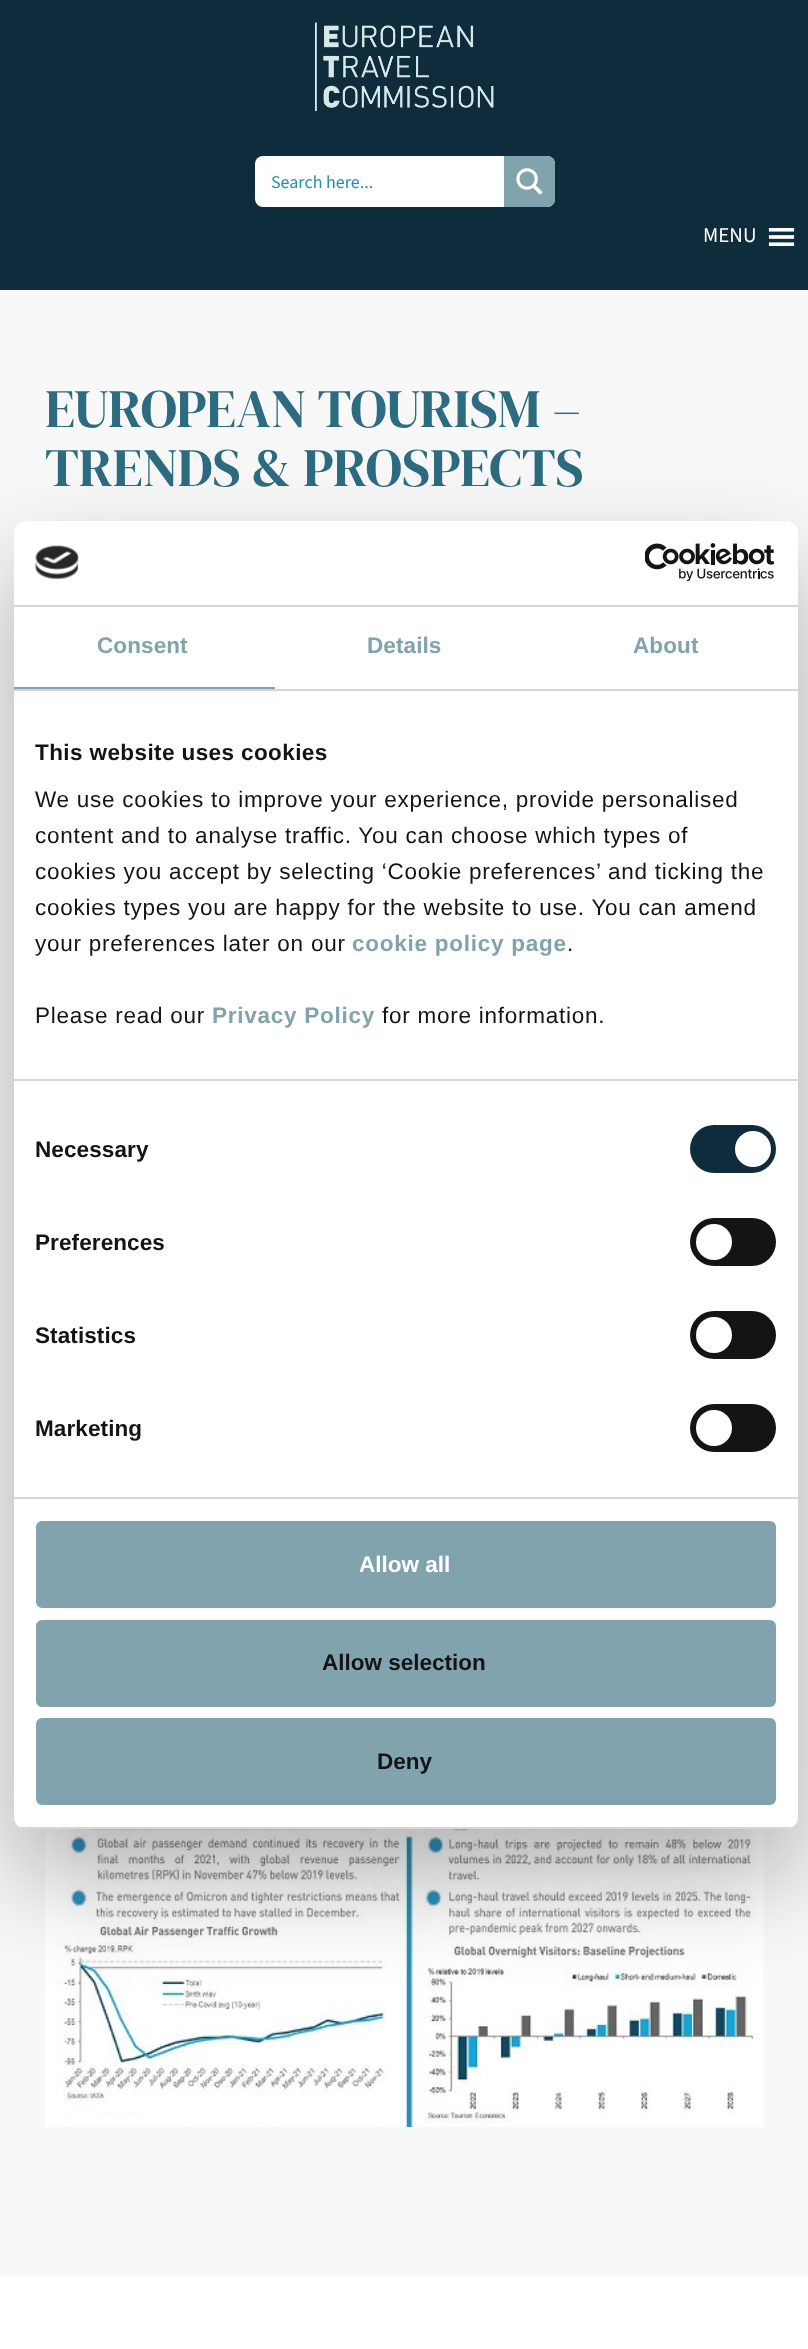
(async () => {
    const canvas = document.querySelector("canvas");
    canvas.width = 808;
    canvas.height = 2349;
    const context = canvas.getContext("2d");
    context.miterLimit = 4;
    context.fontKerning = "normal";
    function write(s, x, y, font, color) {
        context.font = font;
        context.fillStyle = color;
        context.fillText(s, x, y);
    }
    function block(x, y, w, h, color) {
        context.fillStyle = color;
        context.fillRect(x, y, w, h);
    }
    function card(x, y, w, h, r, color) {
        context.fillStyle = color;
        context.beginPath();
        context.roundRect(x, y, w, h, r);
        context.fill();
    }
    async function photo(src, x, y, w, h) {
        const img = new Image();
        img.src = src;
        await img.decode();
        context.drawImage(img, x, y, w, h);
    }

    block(0, 0, 808, 2349, "rgb(255, 255, 255)");
    block(0, 0, 808, 290, "rgb(15, 44, 61)");
    await photo("media/1.png", 315, 22, 179, 89);
    card(255, 156, 300, 51, 8, "rgb(255, 255, 255)");
    write("Search here...", 271, 188, "18px 'Source Sans 3'", "rgb(38, 143, 177)");
    context.fillStyle = "rgb(128, 163, 173)";
    context.beginPath();
    context.roundRect(504, 156, 51, 51, [0, 8, 8, 0]);
    context.fill();
    await photo("media/2.png", 516, 168, 27, 27);
    write("MENU", 703, 242, "21px 'Source Sans 3'", "rgb(255, 255, 255)");
    await photo("media/3.png", 768, 228, 27, 18);
    block(0, 290, 808, 1987, "rgb(248, 248, 248)");
    write("EUROPEAN TOURISM –", 45, 427, "54px DM Serif Display", "rgb(45, 108, 128)");
    write("TRENDS & PROSPECTS", 45, 486, "54px DM Serif Display", "rgb(45, 108, 128)");
    await photo("media/4.png", 45, 1829, 719, 298);
    context.fillStyle = "rgba(0, 0, 0, 0.3)";
    context.filter = "blur(51px)";
    context.beginPath();
    context.roundRect(14, 569, 784, 1308, 12);
    context.fill();
    context.filter = "none";
    card(14, 521, 784, 1308, 12, "rgb(255, 255, 255)");
    block(14, 605, 784, 2, "rgb(214, 214, 214)");
    await photo("media/5.png", 34, 545, 45, 34);
    await photo("media/6.png", 645, 543, 130, 39);
    block(14, 689, 784, 2, "rgb(214, 214, 214)");
    block(14, 687, 261, 2, "rgb(128, 163, 173)");
    context.letterSpacing = "0.1px";
    write("Consent", 97, 653, "bold 22.5px Liberation Sans", "rgb(128, 163, 173)");
    write("Details", 367, 653, "bold 22.5px Liberation Sans", "rgb(128, 163, 173)");
    write("About", 633, 653, "bold 22.5px Liberation Sans", "rgb(128, 163, 173)");
    block(14, 1079, 784, 2, "rgb(214, 214, 214)");
    context.letterSpacing = "0.4px";
    write("This website uses cookies", 35, 760, "bold 22.5px Liberation Sans", "rgb(20, 20, 20)");
    context.letterSpacing = "0.75px";
    write("We use cookies to improve your experience, provide personalised", 35, 807, "22.5px Liberation Sans", "rgb(20, 20, 20)");
    write("content and to analyse traffic. You can choose which types of", 35, 843, "22.5px Liberation Sans", "rgb(20, 20, 20)");
    write("cookies you accept by selecting ‘Cookie preferences’ and ticking the", 35, 879, "22.5px Liberation Sans", "rgb(20, 20, 20)");
    write("cookies types you are happy for the website to use. You can amend", 35, 915, "22.5px Liberation Sans", "rgb(20, 20, 20)");
    write("your preferences later on our", 35, 951, "22.5px Liberation Sans", "rgb(20, 20, 20)");
    write("cookie policy page", 352, 951, "bold 22.5px Liberation Sans", "rgb(128, 163, 173)");
    write(".", 567, 951, "22.5px Liberation Sans", "rgb(20, 20, 20)");
    write("Please read our", 35, 1023, "22.5px Liberation Sans", "rgb(20, 20, 20)");
    write("Privacy Policy", 212, 1023, "bold 22.5px Liberation Sans", "rgb(128, 163, 173)");
    write("for more information.", 382, 1023, "22.5px Liberation Sans", "rgb(20, 20, 20)");
    block(14, 1497, 784, 2, "rgb(214, 214, 214)");
    context.letterSpacing = "0.1px";
    write("Necessary", 35, 1157, "bold 22.5px Liberation Sans", "rgb(20, 20, 20)");
    card(690, 1125, 86, 48, 24, "rgb(15, 44, 61)");
    context.fillStyle = "rgb(255, 255, 255)";
    context.beginPath();
    context.arc(753, 1149, 18, 0, Math.PI * 2);
    context.fill();
    write("Preferences", 35, 1250, "bold 22.5px Liberation Sans", "rgb(20, 20, 20)");
    card(690, 1218, 86, 48, 24, "rgb(20, 20, 20)");
    context.fillStyle = "rgb(255, 255, 255)";
    context.beginPath();
    context.arc(714, 1242, 18, 0, Math.PI * 2);
    context.fill();
    write("Statistics", 35, 1343, "bold 22.5px Liberation Sans", "rgb(20, 20, 20)");
    card(690, 1311, 86, 48, 24, "rgb(20, 20, 20)");
    context.fillStyle = "rgb(255, 255, 255)";
    context.beginPath();
    context.arc(714, 1335, 18, 0, Math.PI * 2);
    context.fill();
    write("Marketing", 35, 1436, "bold 22.5px Liberation Sans", "rgb(20, 20, 20)");
    card(690, 1404, 86, 48, 24, "rgb(20, 20, 20)");
    context.fillStyle = "rgb(255, 255, 255)";
    context.beginPath();
    context.arc(714, 1428, 18, 0, Math.PI * 2);
    context.fill();
    context.save();
    context.beginPath();
    context.roundRect(14, 521, 784, 1308, 12);
    context.clip();
    block(14, 1827, 784, 2, "rgb(214, 214, 214)");
    context.restore();
    context.fillStyle = "rgb(128, 163, 173)";
    context.beginPath();
    context.roundRect(37.5, 1522.5, 737, 84, 4.5);
    context.fill();
    context.strokeStyle = "rgb(128, 163, 173)";
    context.lineWidth = 3;
    context.stroke();
    context.letterSpacing = "0px";
    write("Allow all", 359, 1572, "bold 22.5px Liberation Sans", "rgb(255, 255, 255)");
    context.fillStyle = "rgb(128, 163, 173)";
    context.beginPath();
    context.roundRect(37.5, 1621.5, 737, 84, 4.5);
    context.fill();
    context.stroke();
    write("Allow selection", 322, 1670, "bold 22.5px Liberation Sans", "rgb(20, 20, 20)");
    context.fillStyle = "rgb(128, 163, 173)";
    context.beginPath();
    context.roundRect(37.5, 1719.5, 737, 84, 4.5);
    context.fill();
    context.stroke();
    write("Deny", 377, 1769, "bold 22.5px Liberation Sans", "rgb(20, 20, 20)");
})();
